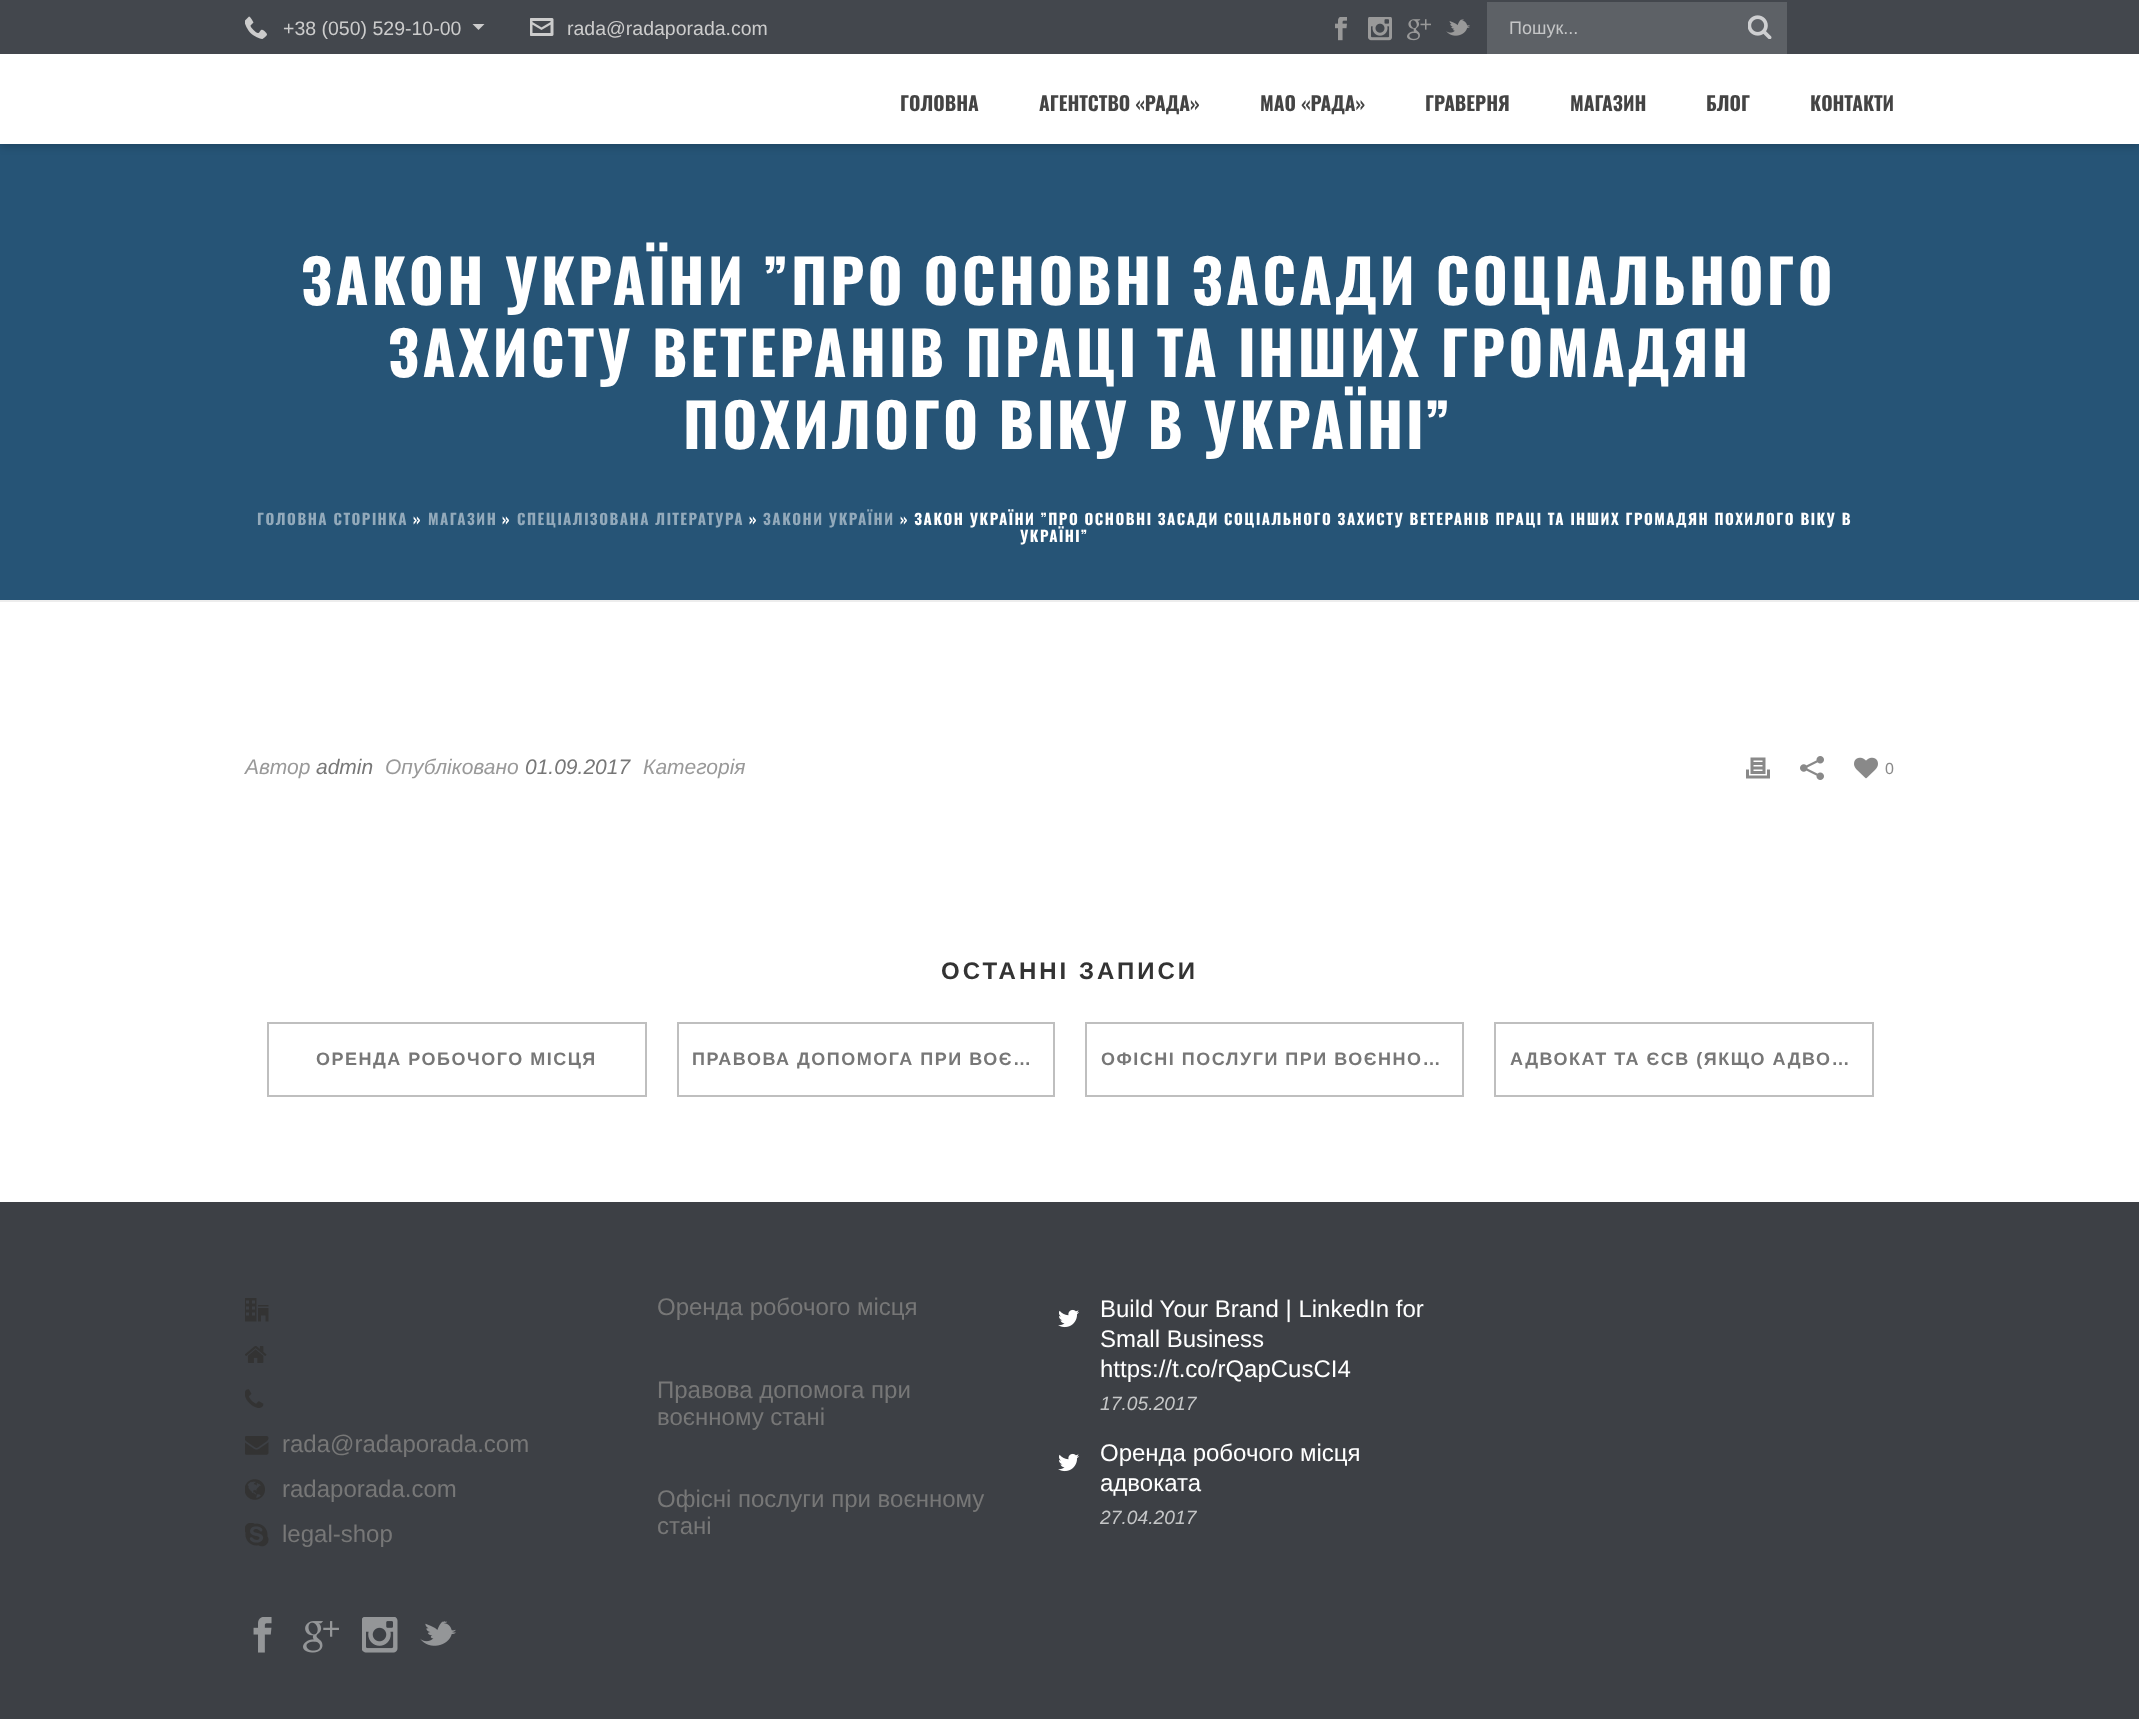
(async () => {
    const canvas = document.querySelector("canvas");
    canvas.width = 2139;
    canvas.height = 1719;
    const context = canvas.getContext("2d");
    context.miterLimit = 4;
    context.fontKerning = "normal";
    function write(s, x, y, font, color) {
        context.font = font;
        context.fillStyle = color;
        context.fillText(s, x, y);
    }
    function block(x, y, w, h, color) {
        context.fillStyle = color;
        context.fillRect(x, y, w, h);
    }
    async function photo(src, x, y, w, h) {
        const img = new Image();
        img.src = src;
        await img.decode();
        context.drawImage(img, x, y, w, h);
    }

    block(0, 0, 2139, 1719, "rgb(255, 255, 255)");
    block(0, 144, 2139, 456, "rgb(38, 84, 118)");
    block(0, 600, 2139, 2, "rgb(237, 237, 237)");
    context.fillStyle = "rgba(0, 0, 0, 0.2)";
    context.filter = "blur(4px)";
    context.beginPath();
    context.rect(0, 56, 2139, 90);
    context.fill();
    context.filter = "none";
    block(0, 0, 2139, 54, "rgb(67, 71, 77)");
    await photo("media/1.png", 245, 16, 22, 23);
    write("+38 (050) 529-10-00", 283, 35, "19.5px Liberation Sans", "rgb(204, 204, 204)");
    context.beginPath();
    context.moveTo(472.5, 24);
    context.lineTo(478.5, 30);
    context.lineTo(484.5, 24);
    context.closePath();
    context.fill();
    await photo("media/2.png", 530, 18, 24, 18);
    write("rada@radaporada.com", 567, 35, "19.5px Liberation Sans", "rgb(204, 204, 204)");
    await photo("media/3.png", 1335, 17, 12, 24);
    await photo("media/4.png", 1368, 17, 24, 24);
    await photo("media/5.png", 1407, 19, 24, 22);
    await photo("media/6.png", 1446, 19, 24, 17);
    block(1487, 2, 300, 52, "rgba(255, 255, 255, 0.14)");
    write("Пошук...", 1509, 34, "18px Liberation Sans", "rgb(197, 198, 199)");
    await photo("media/7.png", 1748, 15, 24, 24);
    block(0, 54, 2139, 90, "rgb(255, 255, 255)");
    write("ГОЛОВНА", 900, 111, "bold 19.5px Oswald", "rgb(68, 68, 68)");
    write("АГЕНТСТВО «РАДА»", 1039, 111, "bold 19.5px Oswald", "rgb(68, 68, 68)");
    write("МАО «РАДА»", 1260, 111, "bold 19.5px Oswald", "rgb(68, 68, 68)");
    write("ГРАВЕРНЯ", 1425, 111, "bold 19.5px Oswald", "rgb(68, 68, 68)");
    write("МАГАЗИН", 1570, 111, "bold 19.5px Oswald", "rgb(68, 68, 68)");
    write("БЛОГ", 1706, 111, "bold 19.5px Oswald", "rgb(68, 68, 68)");
    write("КОНТАКТИ", 1810, 111, "bold 19.5px Oswald", "rgb(68, 68, 68)");
    context.letterSpacing = "3px";
    context.wordSpacing = "-0.5px";
    write("ЗАКОН УКРАЇНИ ”ПРО ОСНОВНІ ЗАСАДИ СОЦІАЛЬНОГО", 301, 305, "bold 60px Oswald", "rgb(255, 255, 255)");
    context.wordSpacing = "0px";
    write("ЗАХИСТУ ВЕТЕРАНІВ ПРАЦІ ТА ІНШИХ ГРОМАДЯН", 388, 377, "bold 60px Oswald", "rgb(255, 255, 255)");
    context.wordSpacing = "-1px";
    write("ПОХИЛОГО ВІКУ В УКРАЇНІ”", 683, 449, "bold 60px Oswald", "rgb(255, 255, 255)");
    context.letterSpacing = "1.5px";
    context.wordSpacing = "0px";
    write("ГОЛОВНА СТОРІНКА", 257, 525, "bold 15px Oswald", "rgb(147, 170, 187)");
    write("»", 413, 525, "bold 15px Oswald", "rgb(255, 255, 255)");
    write("МАГАЗИН", 428, 525, "bold 15px Oswald", "rgb(147, 170, 187)");
    write("»", 502, 525, "bold 15px Oswald", "rgb(255, 255, 255)");
    write("СПЕЦІАЛІЗОВАНА ЛІТЕРАТУРА", 517, 525, "bold 15px Oswald", "rgb(147, 170, 187)");
    write("»", 749, 525, "bold 15px Oswald", "rgb(255, 255, 255)");
    write("ЗАКОНИ УКРАЇНИ", 763, 525, "bold 15px Oswald", "rgb(147, 170, 187)");
    write("» ЗАКОН УКРАЇНИ ”ПРО ОСНОВНІ ЗАСАДИ СОЦІАЛЬНОГО ЗАХИСТУ ВЕТЕРАНІВ ПРАЦІ ТА ІНШИХ ГРОМАДЯН ПОХИЛОГО ВІКУ В", 900, 525, "bold 15px Oswald", "rgb(255, 255, 255)");
    write("УКРАЇНІ”", 1020, 542, "bold 15px Oswald", "rgb(255, 255, 255)");
    context.letterSpacing = "0px";
    write("Автор", 245, 774, "italic 21px Liberation Sans", "rgb(153, 153, 153)");
    write("admin", 316, 774, "italic 21px Liberation Sans", "rgb(119, 119, 119)");
    write("Опубліковано", 385, 774, "italic 21px Liberation Sans", "rgb(153, 153, 153)");
    write("01.09.2017", 525, 774, "italic 21px Liberation Sans", "rgb(119, 119, 119)");
    write("Категорія", 643, 774, "italic 21px Liberation Sans", "rgb(153, 153, 153)");
    await photo("media/8.png", 1746, 757, 24, 22);
    await photo("media/9.png", 1800, 756, 24, 24);
    await photo("media/10.png", 1854, 757, 24, 22);
    write("0", 1885, 774, "16px Liberation Sans", "rgb(137, 137, 137)");
    context.letterSpacing = "3px";
    write("ОСТАННІ ЗАПИСИ", 941, 979, "bold 24px Liberation Sans", "rgb(51, 51, 51)");
    context.strokeStyle = "rgb(191, 191, 191)";
    context.lineWidth = 2;
    context.strokeRect(268, 1023, 378, 73);
    context.letterSpacing = "1.5px";
    write("ОРЕНДА РОБОЧОГО МІСЦЯ", 316, 1065, "bold 18px Liberation Sans", "rgb(119, 119, 119)");
    context.strokeRect(678, 1023, 376, 73);
    write("ПРАВОВА ДОПОМОГА ПРИ ВОЄ…", 692, 1065, "bold 18px Liberation Sans", "rgb(119, 119, 119)");
    context.strokeRect(1086, 1023, 377, 73);
    write("ОФІСНІ ПОСЛУГИ ПРИ ВОЄННО…", 1101, 1065, "bold 18px Liberation Sans", "rgb(119, 119, 119)");
    context.strokeRect(1495, 1023, 378, 73);
    write("АДВОКАТ ТА ЄСВ (ЯКЩО АДВО…", 1510, 1065, "bold 18px Liberation Sans", "rgb(119, 119, 119)");
    block(0, 1202, 2139, 517, "rgb(61, 64, 69)");
    await photo("media/11.png", 245, 1298, 24, 24);
    await photo("media/12.png", 245, 1346, 22, 17);
    await photo("media/13.png", 245, 1389, 19, 19);
    await photo("media/14.png", 245, 1436, 24, 19);
    context.letterSpacing = "0px";
    write("rada@radaporada.com", 282, 1452, "24px Liberation Sans", "rgb(119, 119, 119)");
    await photo("media/15.png", 245, 1479, 20, 21);
    write("radaporada.com", 282, 1497, "24px Liberation Sans", "rgb(119, 119, 119)");
    await photo("media/16.png", 245, 1523, 24, 24);
    write("legal-shop", 282, 1542, "24px Liberation Sans", "rgb(119, 119, 119)");
    await photo("media/17.png", 253, 1617, 19, 36);
    await photo("media/18.png", 303, 1621, 36, 32);
    await photo("media/19.png", 362, 1617, 36, 36);
    await photo("media/20.png", 420, 1621, 36, 25);
    write("Оренда робочого місця", 657, 1315, "24px Liberation Sans", "rgb(119, 119, 119)");
    write("Правова допомога при", 657, 1398, "24px Liberation Sans", "rgb(119, 119, 119)");
    write("воєнному стані", 657, 1425, "24px Liberation Sans", "rgb(119, 119, 119)");
    write("Офісні послуги при воєнному", 657, 1507, "24px Liberation Sans", "rgb(119, 119, 119)");
    write("стані", 657, 1534, "24px Liberation Sans", "rgb(119, 119, 119)");
    await photo("media/21.png", 1058, 1309, 21, 19);
    write("Build Your Brand | LinkedIn for", 1100, 1317, "24px Liberation Sans", "rgb(255, 255, 255)");
    write("Small Business", 1100, 1347, "24px Liberation Sans", "rgb(255, 255, 255)");
    write("https://t.co/rQapCusCI4", 1100, 1377, "24px Liberation Sans", "rgb(255, 255, 255)");
    write("17.05.2017", 1100, 1410, "italic 19.25px Liberation Sans", "rgb(197, 198, 199)");
    await photo("media/21.png", 1058, 1453, 21, 19);
    write("Оренда робочого місця", 1100, 1461, "24px Liberation Sans", "rgb(255, 255, 255)");
    write("адвоката", 1100, 1491, "24px Liberation Sans", "rgb(255, 255, 255)");
    write("27.04.2017", 1100, 1524, "italic 19.25px Liberation Sans", "rgb(197, 198, 199)");
})();
